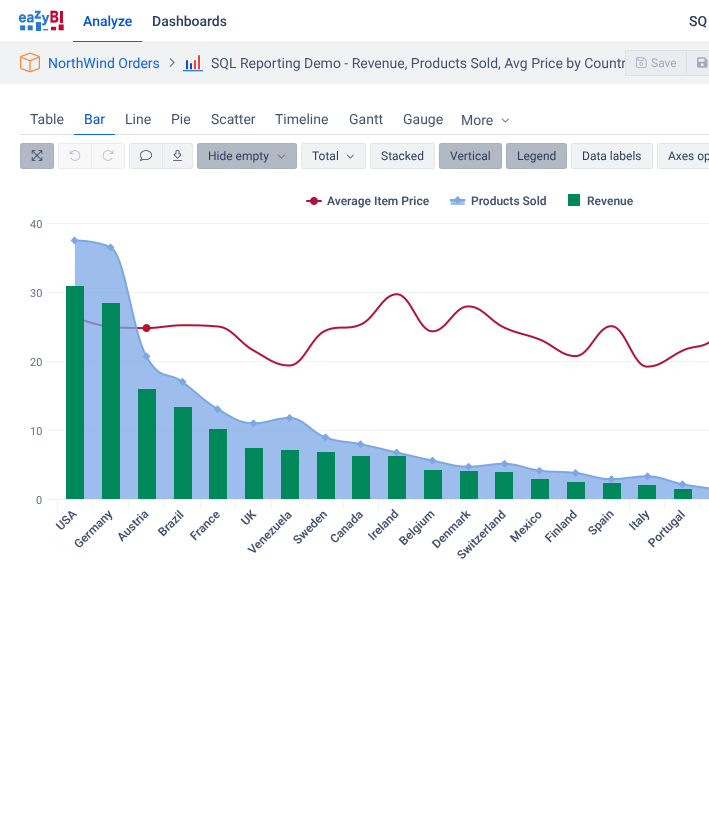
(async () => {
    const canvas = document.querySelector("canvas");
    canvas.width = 709;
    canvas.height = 838;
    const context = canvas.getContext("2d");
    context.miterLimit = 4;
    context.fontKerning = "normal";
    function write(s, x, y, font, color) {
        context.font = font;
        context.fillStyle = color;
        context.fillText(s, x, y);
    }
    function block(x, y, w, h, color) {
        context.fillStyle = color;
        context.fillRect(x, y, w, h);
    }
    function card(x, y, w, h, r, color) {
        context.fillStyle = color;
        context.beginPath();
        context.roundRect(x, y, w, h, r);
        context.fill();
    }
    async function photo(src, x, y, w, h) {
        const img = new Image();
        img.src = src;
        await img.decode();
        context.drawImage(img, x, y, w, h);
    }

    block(0, 0, 709, 838, "rgb(255, 255, 255)");
    block(0, 41, 709, 43, "rgb(241, 242, 244)");
    await photo("media/1.png", 18, 10, 46, 21);
    block(73, 41, 69, 1, "rgb(12, 102, 228)");
    write("Analyze", 83, 26, "500 14px Roboto", "rgb(0, 85, 204)");
    write("Dashboards", 152, 26, "500 14px Roboto", "rgb(44, 62, 93)");
    write("SQ", 689, 26, "500 14px Roboto", "rgb(44, 62, 93)");
    await photo("media/2.png", 20, 52, 20, 21);
    write("NorthWind Orders", 48, 68, "14px Roboto", "rgb(12, 102, 228)");
    await photo("media/3.png", 169, 58, 6, 9);
    await photo("media/5.png", 183, 60, 20, 12);
    await photo("media/4.png", 194, 55, 6, 15);
    context.save();
    context.beginPath();
    context.rect(20, 50, 605, 26);
    context.clip();
    write("SQL Reporting Demo - Revenue, Products Sold, Avg Price by Countr", 211, 68, "14px Roboto", "rgb(68, 84, 111)");
    context.restore();
    context.fillStyle = "rgb(234, 236, 239)";
    context.beginPath();
    context.roundRect(625, 50, 62, 26, [3, 0, 0, 3]);
    context.fill();
    context.strokeStyle = "rgba(9, 30, 66, 0.06)";
    context.strokeRect(625.5, 50.5, 61, 25);
    await photo("media/6.png", 636, 57, 11, 11);
    write("Save", 651, 67, "12px Roboto", "rgb(164, 172, 185)");
    block(687, 51, 22, 24, "rgb(234, 236, 239)");
    context.fillStyle = "rgb(221, 224, 229)";
    context.beginPath();
    context.moveTo(687, 50);
    context.lineTo(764, 50);
    context.lineTo(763, 51);
    context.lineTo(687, 51);
    context.closePath();
    context.moveTo(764, 76);
    context.lineTo(687, 76);
    context.lineTo(687, 75);
    context.lineTo(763, 75);
    context.closePath();
    context.fill();
    await photo("media/7.png", 697, 57, 11, 11);
    write("Table", 30, 124, "14px Roboto", "rgb(68, 84, 111)");
    block(20, 134, 689, 1, "rgb(220, 223, 228)");
    block(74, 134, 41, 1, "rgb(12, 102, 228)");
    write("Bar", 84, 124, "14px Roboto", "rgb(0, 85, 204)");
    write("Line", 125, 124, "14px Roboto", "rgb(68, 84, 111)");
    write("Pie", 171, 124, "14px Roboto", "rgb(68, 84, 111)");
    write("Scatter", 211, 124, "14px Roboto", "rgb(68, 84, 111)");
    write("Timeline", 275, 124, "14px Roboto", "rgb(68, 84, 111)");
    write("Gantt", 349, 124, "14px Roboto", "rgb(68, 84, 111)");
    write("Gauge", 403, 124, "14px Roboto", "rgb(68, 84, 111)");
    write("More", 461, 125, "14px Roboto", "rgb(68, 84, 111)");
    await photo("media/8.png", 501, 118, 8, 5);
    card(20, 143, 34, 26, 3, "rgb(179, 185, 196)");
    context.strokeRect(20.5, 143.5, 33, 25);
    await photo("media/9.png", 31, 150, 12, 11);
    context.fillStyle = "rgb(248, 248, 249)";
    context.beginPath();
    context.roundRect(58, 143, 34, 26, [3, 0, 0, 3]);
    context.fill();
    context.strokeRect(58.5, 143.5, 33, 25);
    await photo("media/10.png", 69, 150, 12, 11);
    context.beginPath();
    context.roundRect(92, 143, 33, 26, [0, 3, 3, 0]);
    context.fill();
    context.fillStyle = "rgb(234, 235, 238)";
    context.beginPath();
    context.moveTo(92, 143);
    context.lineTo(122, 143);
    context.bezierCurveTo(123.5, 143, 125, 144.5, 125, 146);
    context.lineTo(125, 166);
    context.bezierCurveTo(125, 167.5, 123.5, 169, 122, 169);
    context.lineTo(92, 169);
    context.closePath();
    context.moveTo(92, 144);
    context.lineTo(122, 144);
    context.bezierCurveTo(123, 144, 124, 145, 124, 146);
    context.lineTo(124, 166);
    context.bezierCurveTo(124, 167, 123, 168, 122, 168);
    context.lineTo(92, 168);
    context.closePath();
    context.fill("evenodd");
    await photo("media/11.png", 102, 150, 12, 11);
    context.fillStyle = "rgb(240, 242, 244)";
    context.beginPath();
    context.roundRect(129, 143, 34, 26, [3, 0, 0, 3]);
    context.fill();
    context.strokeRect(129.5, 143.5, 33, 25);
    await photo("media/12.png", 140, 150, 12, 11);
    context.beginPath();
    context.roundRect(163, 143, 30, 26, [0, 3, 3, 0]);
    context.fill();
    context.fillStyle = "rgb(226, 229, 233)";
    context.beginPath();
    context.moveTo(163, 143);
    context.lineTo(190, 143);
    context.bezierCurveTo(191.5, 143, 193, 144.5, 193, 146);
    context.lineTo(193, 166);
    context.bezierCurveTo(193, 167.5, 191.5, 169, 190, 169);
    context.lineTo(163, 169);
    context.closePath();
    context.moveTo(163, 144);
    context.lineTo(190, 144);
    context.bezierCurveTo(191, 144, 192, 145, 192, 146);
    context.lineTo(192, 166);
    context.bezierCurveTo(192, 167, 191, 168, 190, 168);
    context.lineTo(163, 168);
    context.closePath();
    context.fill("evenodd");
    await photo("media/13.png", 173, 150, 9, 11);
    card(197, 143, 100, 26, 3, "rgb(179, 185, 196)");
    context.strokeRect(197.5, 143.5, 99, 25);
    write("Hide empty", 208, 160, "12px Roboto", "rgb(44, 62, 93)");
    await photo("media/14.png", 277, 154, 8, 5);
    card(301, 143, 65, 26, 3, "rgb(240, 242, 244)");
    context.strokeRect(301.5, 143.5, 64, 25);
    write("Total", 312, 160, "12px Roboto", "rgb(44, 62, 93)");
    await photo("media/15.png", 346, 154, 8, 5);
    card(370, 143, 65, 26, 3, "rgb(240, 242, 244)");
    context.strokeRect(370.5, 143.5, 64, 25);
    write("Stacked", 381, 160, "12px Roboto", "rgb(44, 62, 93)");
    card(439, 143, 63, 26, 3, "rgb(179, 185, 196)");
    context.strokeRect(439.5, 143.5, 62, 25);
    write("Vertical", 450, 160, "12px Roboto", "rgb(44, 62, 93)");
    card(506, 143, 61, 26, 3, "rgb(179, 185, 196)");
    context.strokeRect(506.5, 143.5, 60, 25);
    write("Legend", 517, 160, "12px Roboto", "rgb(44, 62, 93)");
    card(571, 143, 82, 26, 3, "rgb(240, 242, 244)");
    context.strokeRect(571.5, 143.5, 81, 25);
    write("Data labels", 582, 160, "12px Roboto", "rgb(44, 62, 93)");
    card(657, 143, 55, 26, 3, "rgb(240, 242, 244)");
    context.strokeRect(657.5, 143.5, 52, 25);
    write("Axes op", 668, 160, "12px Roboto", "rgb(44, 62, 93)");
    await photo("media/16.png", 47, 194, 662, 315);
    write("Average Item Price", 327, 205, "600 12px Roboto", "rgb(68, 84, 111)");
    write("Products Sold", 471, 205, "600 12px Roboto", "rgb(68, 84, 111)");
    write("Revenue", 587, 205, "600 12px Roboto", "rgb(68, 84, 111)");
    write("40", 30, 228, "11px Roboto", "rgb(98, 111, 134)");
    write("30", 30, 297, "11px Roboto", "rgb(98, 111, 134)");
    write("20", 30, 366, "11px Roboto", "rgb(98, 111, 134)");
    write("10", 30, 435, "11px Roboto", "rgb(98, 111, 134)");
    write("0", 36, 504, "11px Roboto", "rgb(98, 111, 134)");
    context.font = "600 12px Roboto";
    context.fillStyle = "rgb(68, 84, 111)";
    context.save();
    context.translate(61, 531);
    context.rotate(-45 * Math.PI / 180);
    context.fillText("USA", 0, 0);
    context.restore();
    context.save();
    context.translate(79, 549);
    context.rotate(-45 * Math.PI / 180);
    context.fillText("Germany", 0, 0);
    context.restore();
    context.save();
    context.translate(122, 542);
    context.rotate(-45 * Math.PI / 180);
    context.fillText("Austria", 0, 0);
    context.restore();
    context.save();
    context.translate(163, 537);
    context.rotate(-45 * Math.PI / 180);
    context.fillText("Brazil", 0, 0);
    context.restore();
    context.save();
    context.translate(195, 541);
    context.rotate(-45 * Math.PI / 180);
    context.fillText("France", 0, 0);
    context.restore();
    context.save();
    context.translate(246, 526);
    context.rotate(-45 * Math.PI / 180);
    context.fillText("UK", 0, 0);
    context.restore();
    context.save();
    context.translate(298, 545);
    context.rotate(-45 * Math.PI / 180);
    context.fillText("Sweden", 0, 0);
    context.restore();
    context.save();
    context.translate(373, 541);
    context.rotate(-45 * Math.PI / 180);
    context.fillText("Ireland", 0, 0);
    context.restore();
    context.save();
    context.translate(404, 546);
    context.rotate(-45 * Math.PI / 180);
    context.fillText("Belgium", 0, 0);
    context.restore();
    context.save();
    context.translate(437, 549);
    context.rotate(-45 * Math.PI / 180);
    context.fillText("Denmark", 0, 0);
    context.restore();
    context.save();
    context.translate(462, 560);
    context.rotate(-45 * Math.PI / 180);
    context.fillText("Switzerland", 0, 0);
    context.restore();
    context.save();
    context.translate(550, 543);
    context.rotate(-45 * Math.PI / 180);
    context.fillText("Finland", 0, 0);
    context.restore();
    context.save();
    context.translate(593, 536);
    context.rotate(-45 * Math.PI / 180);
    context.fillText("Spain", 0, 0);
    context.restore();
    context.save();
    context.translate(634, 531);
    context.rotate(-45 * Math.PI / 180);
    context.fillText("Italy", 0, 0);
    context.restore();
    context.save();
    context.translate(653, 548);
    context.rotate(-45 * Math.PI / 180);
    context.fillText("Portugal", 0, 0);
    context.restore();
    context.save();
    context.translate(253, 555);
    context.rotate(-45 * Math.PI / 180);
    context.fillText("Venezuela", 0, 0);
    context.restore();
    context.save();
    context.translate(335, 544);
    context.rotate(-45 * Math.PI / 180);
    context.fillText("Canada", 0, 0);
    context.restore();
    context.save();
    context.translate(515, 543);
    context.rotate(-45 * Math.PI / 180);
    context.fillText("Mexico", 0, 0);
    context.restore();
})();
